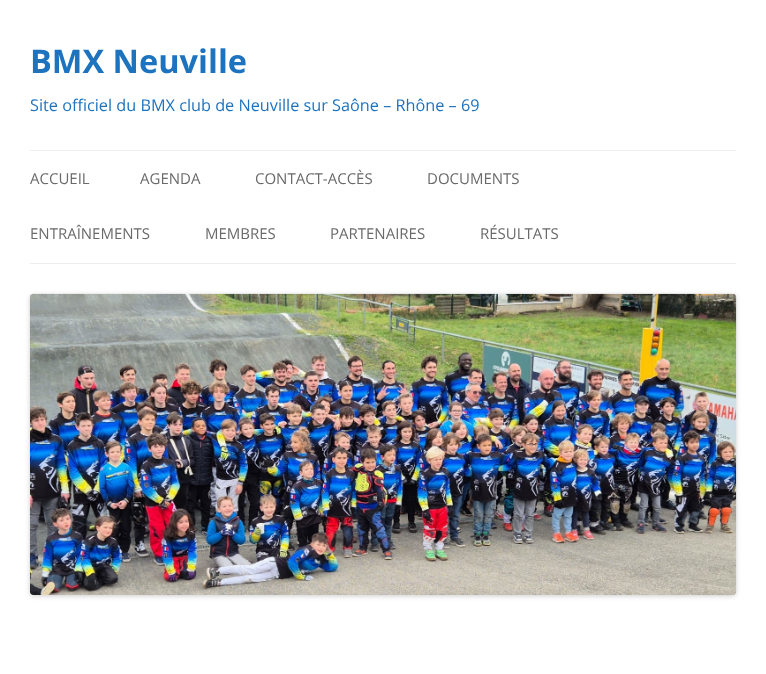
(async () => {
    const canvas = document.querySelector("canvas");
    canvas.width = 766;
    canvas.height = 674;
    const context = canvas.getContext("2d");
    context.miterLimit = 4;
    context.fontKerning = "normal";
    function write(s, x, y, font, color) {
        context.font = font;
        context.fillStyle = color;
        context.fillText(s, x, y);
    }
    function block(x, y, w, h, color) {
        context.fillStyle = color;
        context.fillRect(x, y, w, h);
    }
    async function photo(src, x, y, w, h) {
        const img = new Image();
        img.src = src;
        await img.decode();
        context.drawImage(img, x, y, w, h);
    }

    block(0, 0, 766, 674, "rgb(255, 255, 255)");
    write("BMX Neuville", 30, 73, "bold 32.5px Open Sans", "rgb(30, 115, 190)");
    write("Site officiel du BMX club de Neuville sur Saône – Rhône – 69", 30, 111, "16.25px Open Sans", "rgb(30, 115, 190)");
    block(30, 150, 706, 1, "rgb(237, 237, 237)");
    block(30, 263, 706, 1, "rgb(237, 237, 237)");
    write("ACCUEIL", 30, 184, "15px Open Sans", "rgb(106, 106, 106)");
    write("AGENDA", 140, 184, "15px Open Sans", "rgb(106, 106, 106)");
    write("CONTACT-ACCÈS", 255, 184, "15px Open Sans", "rgb(106, 106, 106)");
    write("DOCUMENTS", 427, 184, "15px Open Sans", "rgb(106, 106, 106)");
    write("ENTRAÎNEMENTS", 30, 239, "15px Open Sans", "rgb(106, 106, 106)");
    write("MEMBRES", 205, 239, "15px Open Sans", "rgb(106, 106, 106)");
    write("PARTENAIRES", 330, 239, "15px Open Sans", "rgb(106, 106, 106)");
    write("RÉSULTATS", 480, 239, "15px Open Sans", "rgb(106, 106, 106)");
    context.fillStyle = "rgba(0, 0, 0, 0.2)";
    context.filter = "blur(2.5px)";
    context.beginPath();
    context.roundRect(30, 295, 706, 301, 4);
    context.fill();
    context.filter = "none";
    await photo("media/1.png", 30, 293, 707, 302);
})();
